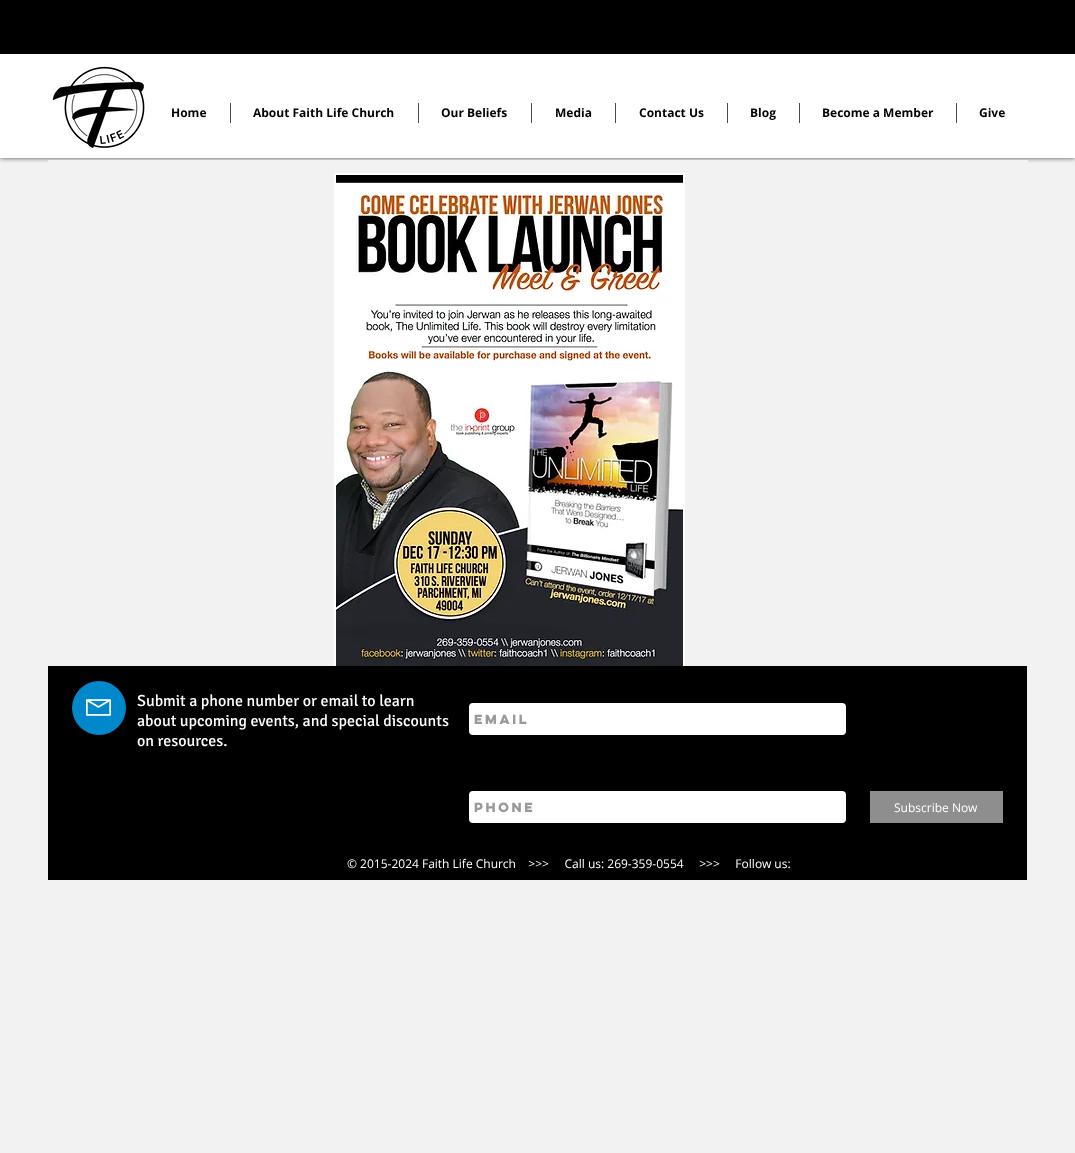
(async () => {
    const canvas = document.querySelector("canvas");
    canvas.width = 1075;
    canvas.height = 1153;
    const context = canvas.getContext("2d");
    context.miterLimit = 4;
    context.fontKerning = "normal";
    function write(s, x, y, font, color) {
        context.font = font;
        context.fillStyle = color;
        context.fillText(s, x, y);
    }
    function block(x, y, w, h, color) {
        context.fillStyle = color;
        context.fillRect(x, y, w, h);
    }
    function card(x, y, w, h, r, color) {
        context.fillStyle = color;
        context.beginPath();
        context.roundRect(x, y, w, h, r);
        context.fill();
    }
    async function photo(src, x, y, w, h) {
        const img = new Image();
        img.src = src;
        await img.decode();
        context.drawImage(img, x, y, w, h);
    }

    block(0, 0, 1075, 1153, "rgb(242, 242, 242)");
    context.fillStyle = "rgba(0, 0, 0, 0.7)";
    context.filter = "blur(2.5px)";
    context.beginPath();
    context.rect(0, 0, 1075, 158);
    context.fill();
    context.filter = "none";
    block(0, 54, 1075, 104, "rgb(255, 255, 255)");
    block(0, 0, 1075, 54, "rgb(0, 0, 0)");
    await photo("media/1.png", 52, 66, 93, 82);
    write("Home", 171, 117, "bold 12px Open Sans", "rgb(0, 0, 0)");
    block(230, 103, 1, 20, "rgb(74, 74, 74)");
    write("About Faith Life Church", 253, 117, "bold 12px Open Sans", "rgb(0, 0, 0)");
    block(418, 103, 1, 20, "rgb(74, 74, 74)");
    write("Our Beliefs", 441, 117, "bold 12px Open Sans", "rgb(0, 0, 0)");
    block(531, 103, 1, 20, "rgb(74, 74, 74)");
    write("Media", 555, 117, "bold 12px Open Sans", "rgb(0, 0, 0)");
    block(615, 103, 1, 20, "rgb(74, 74, 74)");
    write("Contact Us", 639, 117, "bold 12px Open Sans", "rgb(0, 0, 0)");
    block(727, 103, 1, 20, "rgb(74, 74, 74)");
    write("Blog", 750, 117, "bold 12px Open Sans", "rgb(0, 0, 0)");
    block(799, 103, 1, 20, "rgb(74, 74, 74)");
    write("Become a Member", 822, 117, "bold 12px Open Sans", "rgb(0, 0, 0)");
    block(956, 103, 1, 20, "rgb(74, 74, 74)");
    write("Give", 979, 117, "bold 12px Open Sans", "rgb(0, 0, 0)");
    block(48, 160, 980, 3, "rgb(242, 242, 242)");
    block(334, 173, 351, 493, "rgb(255, 255, 255)");
    await photo("media/2.png", 336, 175, 347, 491);
    block(48, 666, 979, 214, "rgb(0, 0, 0)");
    context.fillStyle = "rgb(0, 136, 203)";
    context.beginPath();
    context.arc(99, 708, 27, 0, Math.PI * 2);
    context.fill();
    await photo("media/3.png", 86, 699, 25, 17);
    write("Submit a phone number or email to learn", 137, 706, "16px Signika", "rgb(255, 255, 255)");
    write("about upcoming events, and special discounts", 137, 726, "16px Signika", "rgb(255, 255, 255)");
    write("on resources.", 137, 746, "16px Signika", "rgb(255, 255, 255)");
    card(469, 703, 377, 32, 4, "rgb(255, 255, 255)");
    write("Email", 474, 724, "bold 12px 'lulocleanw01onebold'", "rgb(153, 153, 153)");
    card(469, 791, 377, 32, 4, "rgb(255, 255, 255)");
    write("Phone", 474, 812, "bold 12px 'lulocleanw01onebold'", "rgb(153, 153, 153)");
    block(870, 791, 133, 32, "rgb(142, 142, 142)");
    write("Subscribe Now", 894, 812, "12px Open Sans", "rgb(255, 255, 255)");
    write("© 2015-2024 Faith Life Church    >>>     Call us: 269-359-0554     >>>     Follow us:", 347, 868, "12px Open Sans", "rgb(255, 255, 255)");
})();
